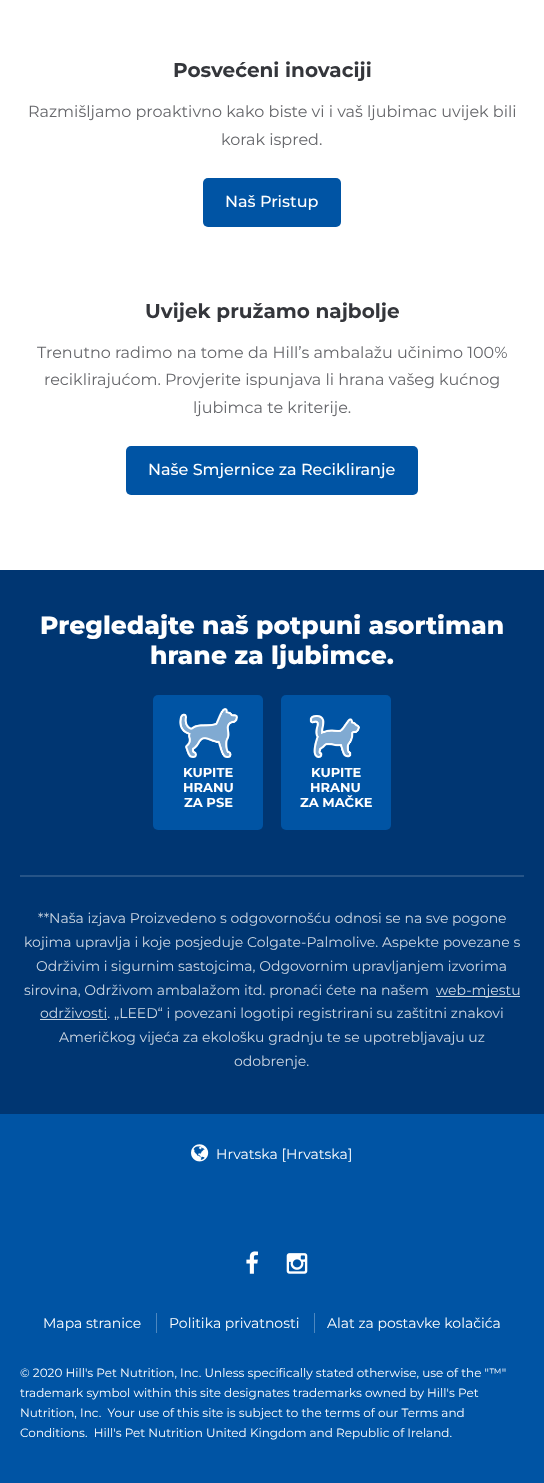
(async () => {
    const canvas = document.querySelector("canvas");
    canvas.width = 544;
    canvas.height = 1483;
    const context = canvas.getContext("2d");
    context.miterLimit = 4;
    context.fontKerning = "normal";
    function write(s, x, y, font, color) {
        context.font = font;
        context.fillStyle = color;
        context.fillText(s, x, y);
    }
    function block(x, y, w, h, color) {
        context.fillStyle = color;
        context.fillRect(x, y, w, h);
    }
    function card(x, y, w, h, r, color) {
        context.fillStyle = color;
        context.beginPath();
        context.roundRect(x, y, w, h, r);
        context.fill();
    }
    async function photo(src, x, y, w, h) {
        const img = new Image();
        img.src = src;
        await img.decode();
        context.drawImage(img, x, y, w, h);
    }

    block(0, 0, 544, 1483, "rgb(255, 255, 255)");
    write("Posvećeni inovaciji", 173, 77, "bold 20px Montserrat", "rgb(52, 54, 59)");
    write("Razmišljamo proaktivno kako biste vi i vaš ljubimac uvijek bili", 28, 117, "16px Montserrat", "rgb(102, 103, 107)");
    write("korak ispred.", 221, 145, "16px Montserrat", "rgb(102, 103, 107)");
    card(203, 178, 138, 49, 5, "rgb(0, 84, 164)");
    write("Naš Pristup", 225, 207, "500 16px Montserrat", "rgb(255, 255, 255)");
    write("Uvijek pružamo najbolje", 145, 318, "bold 20px Montserrat", "rgb(52, 54, 59)");
    write("Trenutno radimo na tome da Hill’s ambalažu učinimo 100%", 37, 358, "16px Montserrat", "rgb(102, 103, 107)");
    write("reciklirajućom. Provjerite ispunjava li hrana vašeg kućnog", 44, 385, "16px Montserrat", "rgb(102, 103, 107)");
    write("ljubimca te kriterije.", 193, 413, "16px Montserrat", "rgb(102, 103, 107)");
    card(126, 446, 292, 49, 5, "rgb(0, 84, 164)");
    write("Naše Smjernice za Recikliranje", 148, 475, "500 16px Montserrat", "rgb(255, 255, 255)");
    block(0, 570, 544, 544, "rgb(0, 54, 114)");
    write("Pregledajte naš potpuni asortiman", 40, 634, "800 25px Montserrat", "rgb(255, 255, 255)");
    write("hrane za ljubimce.", 150, 664, "800 25px Montserrat", "rgb(255, 255, 255)");
    card(153, 695, 110, 135, 5, "rgb(0, 84, 164)");
    await photo("media/1.png", 179, 708, 59, 50);
    write("KUPITE", 183, 777, "bold 13px Montserrat", "rgb(255, 255, 255)");
    write("HRANU", 183, 792, "bold 13px Montserrat", "rgb(255, 255, 255)");
    write("ZA PSE", 184, 807, "bold 13px Montserrat", "rgb(255, 255, 255)");
    card(281, 695, 110, 135, 5, "rgb(0, 84, 164)");
    await photo("media/2.png", 309, 715, 51, 43);
    write("KUPITE", 311, 777, "bold 13px Montserrat", "rgb(255, 255, 255)");
    write("HRANU", 310, 792, "bold 13px Montserrat", "rgb(255, 255, 255)");
    write("ZA MAČKE", 300, 807, "bold 13px Montserrat", "rgb(255, 255, 255)");
    block(20, 875, 504, 2, "rgb(38, 84, 135)");
    write("**Naša izjava Proizvedeno s odgovornošću odnosi se na sve pogone", 38, 923, "14px Montserrat", "rgb(204, 215, 227)");
    write("kojima upravlja i koje posjeduje Colgate-Palmolive. Aspekte povezane s", 24, 947, "14px Montserrat", "rgb(204, 215, 227)");
    write("Održivim i sigurnim sastojcima, Odgovornim upravljanjem izvorima", 36, 971, "14px Montserrat", "rgb(204, 215, 227)");
    write("sirovina, Održivom ambalažom itd. pronaći ćete na našem", 24, 995, "14px Montserrat", "rgb(204, 215, 227)");
    block(436, 996, 84, 1, "rgb(204, 215, 227)");
    write("web-mjestu", 436, 995, "14px Montserrat", "rgb(204, 215, 227)");
    block(40, 1019, 67, 1, "rgb(204, 215, 227)");
    write("održivosti. „LEED“ i povezani logotipi registrirani su zaštitni znakovi", 40, 1018, "14px Montserrat", "rgb(204, 215, 227)");
    write("Američkog vijeća za ekološku gradnju te se upotrebljavaju uz", 59, 1042, "14px Montserrat", "rgb(204, 215, 227)");
    write("odobrenje.", 234, 1066, "14px Montserrat", "rgb(204, 215, 227)");
    block(0, 1114, 544, 369, "rgb(0, 84, 164)");
    await photo("media/3.png", 191, 1144, 18, 18);
    write("Hrvatska [Hrvatska]", 216, 1159, "14px Montserrat", "rgb(255, 255, 255)");
    await photo("media/4.png", 246, 1251, 12, 23);
    await photo("media/5.png", 286, 1253, 22, 21);
    write("Mapa stranice", 43, 1328, "14px Montserrat", "rgb(255, 255, 255)");
    block(156, 1313, 1, 20, "rgb(77, 135, 191)");
    write("Politika privatnosti", 169, 1328, "14px Montserrat", "rgb(255, 255, 255)");
    block(314, 1313, 1, 20, "rgb(77, 135, 191)");
    write("Alat za postavke kolačića", 327, 1328, "14px Montserrat", "rgb(255, 255, 255)");
    write("© 2020 Hill's Pet Nutrition, Inc. Unless specifically stated otherwise, use of the \"™\"", 20, 1377, "12px Montserrat", "rgb(255, 255, 255)");
    write("trademark symbol within this site designates trademarks owned by Hill's Pet", 20, 1397, "12px Montserrat", "rgb(255, 255, 255)");
    write("Nutrition, Inc.  Your use of this site is subject to the terms of our Terms and", 20, 1417, "12px Montserrat", "rgb(255, 255, 255)");
    write("Conditions.  Hill's Pet Nutrition United Kingdom and Republic of Ireland.", 20, 1437, "12px Montserrat", "rgb(255, 255, 255)");
})();
